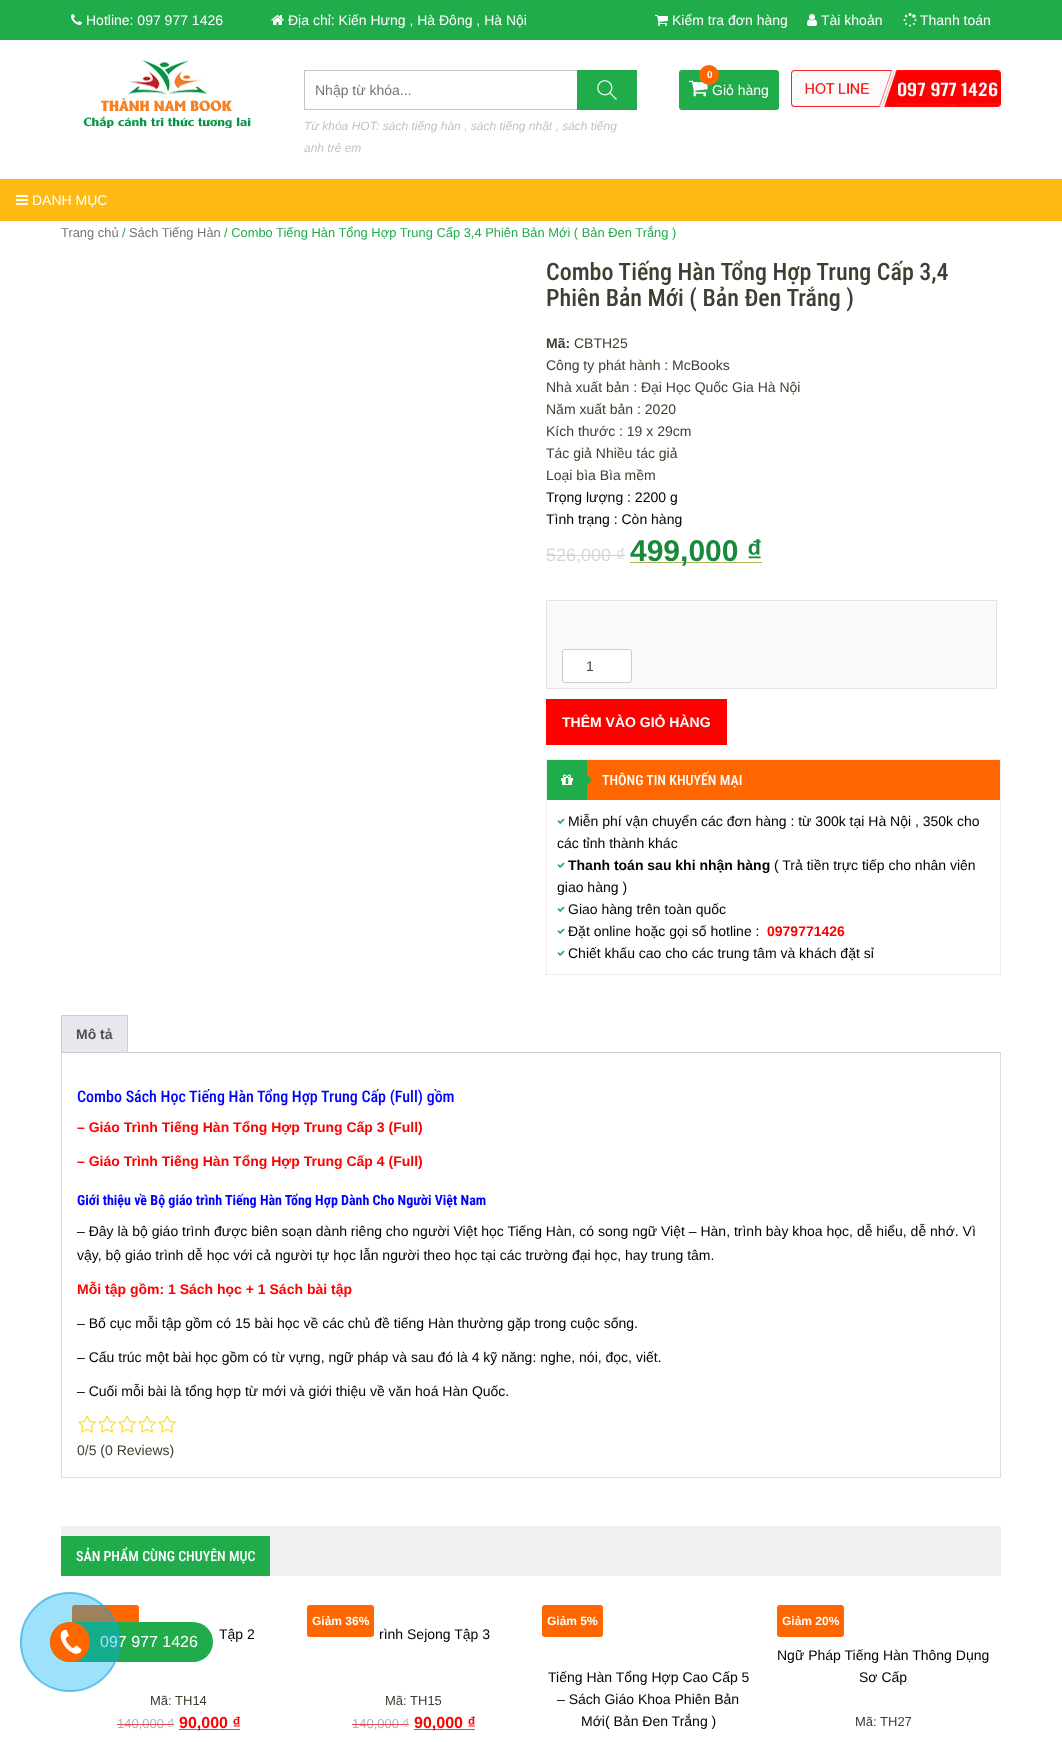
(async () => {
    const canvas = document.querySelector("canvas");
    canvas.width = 1062;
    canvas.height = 1742;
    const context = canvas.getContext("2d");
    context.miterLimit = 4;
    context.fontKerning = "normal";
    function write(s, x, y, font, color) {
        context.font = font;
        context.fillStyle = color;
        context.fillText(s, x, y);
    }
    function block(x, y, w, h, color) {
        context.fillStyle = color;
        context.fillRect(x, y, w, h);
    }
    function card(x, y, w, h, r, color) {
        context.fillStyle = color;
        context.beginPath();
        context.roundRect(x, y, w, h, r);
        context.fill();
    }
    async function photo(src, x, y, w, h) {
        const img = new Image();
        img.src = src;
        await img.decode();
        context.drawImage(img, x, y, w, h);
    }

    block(0, 0, 1062, 1742, "rgb(255, 255, 255)");
    block(0, 0, 1062, 40, "rgb(33, 172, 76)");
    await photo("media/1.png", 71, 14, 11, 11);
    write("Hotline: 097 977 1426", 86, 25, "14px Liberation Sans", "rgb(255, 255, 255)");
    await photo("media/2.png", 271, 15, 13, 10);
    write("Địa chỉ: Kiến Hưng , Hà Đông , Hà Nội", 288, 25, "14px Liberation Sans", "rgb(255, 255, 255)");
    await photo("media/3.png", 655, 15, 13, 11);
    write("Kiểm tra đơn hàng", 672, 25, "14px Liberation Sans", "rgb(255, 255, 255)");
    await photo("media/4.png", 807, 14, 10, 12);
    write("Tài khoản", 821, 25, "14px Liberation Sans", "rgb(255, 255, 255)");
    await photo("media/5.png", 903, 13, 14, 14);
    write("Thanh toán", 920, 25, "14px Liberation Sans", "rgb(255, 255, 255)");
    await photo("media/6.png", 83, 60, 168, 68);
    block(304, 70, 273, 1, "rgb(198, 198, 198)");
    block(304, 109, 273, 1, "rgb(198, 198, 198)");
    block(304, 70, 1, 40, "rgb(198, 198, 198)");
    write("Nhập từ khóa...", 315, 95, "14px Liberation Sans", "rgb(117, 117, 117)");
    block(577, 70, 60, 40, "rgb(33, 172, 76)");
    await photo("media/7.png", 597, 80, 20, 20);
    write("Từ khóa HOT: sách tiếng hàn , sách tiếng nhật , sách tiếng", 304, 130, "italic 12px Liberation Sans", "rgb(194, 194, 194)");
    write("anh trẻ em", 304, 152, "italic 12px Liberation Sans", "rgb(194, 194, 194)");
    card(679, 70, 100, 40, 3, "rgb(33, 172, 76)");
    await photo("media/8.png", 689, 80, 19, 17);
    write("Giỏ hàng", 712, 95, "14px Liberation Sans", "rgb(255, 255, 255)");
    context.fillStyle = "rgb(255, 102, 0)";
    context.beginPath();
    context.arc(709, 75, 10, 0, Math.PI * 2);
    context.fill();
    write("0", 707, 78, "bold 10px Liberation Sans", "rgb(255, 255, 255)");
    await photo("media/9.png", 791, 70, 210, 37);
    block(0, 179, 1062, 42, "rgb(254, 185, 19)");
    await photo("media/10.png", 16, 195, 12, 10);
    write("DANH MỤC", 32, 205, "14px Liberation Sans", "rgb(255, 255, 255)");
    write("Trang chủ", 61, 237, "12.9px Liberation Sans", "rgb(117, 117, 117)");
    write("/", 122, 237, "12.9px Liberation Sans", "rgb(33, 172, 76)");
    write("Sách Tiếng Hàn", 129, 237, "12.9px Liberation Sans", "rgb(117, 117, 117)");
    write("/ Combo Tiếng Hàn Tổng Hợp Trung Cấp 3,4 Phiên Bản Mới ( Bản Đen Trắng )", 224, 237, "12.9px Liberation Sans", "rgb(33, 172, 76)");
    write("Combo Tiếng Hàn Tổng Hợp Trung Cấp 3,4", 546, 280, "500 24px Roboto Condensed", "rgb(62, 63, 49)");
    write("Phiên Bản Mới ( Bản Đen Trắng )", 546, 306, "500 24px Roboto Condensed", "rgb(62, 63, 49)");
    write("Mã:", 546, 348, "bold 14px Liberation Sans", "rgb(62, 63, 49)");
    write("CBTH25", 574, 348, "14px Liberation Sans", "rgb(62, 63, 49)");
    write("Công ty phát hành : McBooks", 546, 370, "14px Liberation Sans", "rgb(62, 63, 49)");
    write("Nhà xuất bản : Đại Học Quốc Gia Hà Nội", 546, 392, "14px Liberation Sans", "rgb(62, 63, 49)");
    write("Năm xuất bản : 2020", 546, 414, "14px Liberation Sans", "rgb(62, 63, 49)");
    write("Kích thước : 19 x 29cm", 546, 436, "14px Liberation Sans", "rgb(62, 63, 49)");
    write("Tác giả Nhiều tác giả", 546, 458, "14px Liberation Sans", "rgb(62, 63, 49)");
    write("Loại bìa Bìa mềm", 546, 480, "14px Liberation Sans", "rgb(62, 63, 49)");
    write("Trọng lượng : 2200 g", 546, 502, "14px Liberation Sans", "rgb(0, 0, 0)");
    write("Tình trạng : Còn hàng", 546, 524, "14px Liberation Sans", "rgb(0, 0, 0)");
    write("526,000 ₫", 546, 561, "18px Liberation Sans", "rgb(213, 217, 222)");
    block(546, 555, 79, 1, "rgb(217, 215, 170)");
    block(630, 562, 132, 1, "rgb(179, 175, 84)");
    write("499,000 ₫", 630, 561, "bold 30px Liberation Sans", "rgb(25, 137, 59)");
    context.fillStyle = "rgb(249, 249, 249)";
    context.beginPath();
    context.rect(546.5, 600.5, 450, 88);
    context.fill();
    context.strokeStyle = "rgb(227, 227, 227)";
    context.stroke();
    context.fillStyle = "rgb(255, 255, 255)";
    context.beginPath();
    context.roundRect(562.5, 649.5, 69, 33, 2.5);
    context.fill();
    context.strokeStyle = "rgb(204, 204, 204)";
    context.stroke();
    write("1", 586, 671, "14px Liberation Sans", "rgb(62, 63, 49)");
    block(546, 699, 181, 46, "rgb(255, 0, 0)");
    write("THÊM VÀO GIỎ HÀNG", 562, 727, "bold 14px Liberation Sans", "rgb(255, 255, 255)");
    context.beginPath();
    context.moveTo(546, 759.5);
    context.lineTo(1001, 759.5);
    context.strokeStyle = "rgb(221, 221, 221)";
    context.setLineDash([1, 1]);
    context.stroke();
    context.beginPath();
    context.moveTo(1000.5, 759);
    context.lineTo(1000.5, 975);
    context.stroke();
    context.beginPath();
    context.moveTo(546, 974.5);
    context.lineTo(1001, 974.5);
    context.stroke();
    context.beginPath();
    context.moveTo(546.5, 759);
    context.lineTo(546.5, 975);
    context.stroke();
    block(587, 760, 413, 40, "rgb(255, 102, 0)");
    block(547, 760, 40, 40, "rgb(33, 172, 76)");
    await photo("media/11.png", 561, 774, 12, 11);
    context.beginPath();
    context.moveTo(587, 785);
    context.lineTo(587, 775);
    context.lineTo(592, 780);
    context.closePath();
    context.fill();
    write("THÔNG TIN KHUYẾN MẠI", 602, 785, "500 14px Roboto Condensed", "rgb(255, 255, 255)");
    await photo("media/12.png", 557, 818, 8, 6);
    write("Miễn phí vận chuyển các đơn hàng : từ 300k tại Hà Nội , 350k cho", 568, 826, "14px Liberation Sans", "rgb(0, 0, 0)");
    write("các tỉnh thành khác", 557, 848, "14px Liberation Sans", "rgb(0, 0, 0)");
    await photo("media/12.png", 557, 862, 8, 6);
    write("Thanh toán sau khi nhận hàng", 568, 870, "bold 14px Liberation Sans", "rgb(0, 0, 0)");
    write("( Trả tiền trực tiếp cho nhân viên", 774, 870, "14px Liberation Sans", "rgb(0, 0, 0)");
    write("giao hàng )", 557, 892, "14px Liberation Sans", "rgb(0, 0, 0)");
    await photo("media/12.png", 557, 906, 8, 6);
    write("Giao hàng trên toàn quốc", 568, 914, "14px Liberation Sans", "rgb(0, 0, 0)");
    await photo("media/12.png", 557, 928, 8, 6);
    write("Đặt online hoặc gọi số hotline :", 568, 936, "14px Liberation Sans", "rgb(0, 0, 0)");
    write("0979771426", 767, 936, "bold 14px Liberation Sans", "rgb(255, 0, 0)");
    await photo("media/12.png", 557, 950, 8, 6);
    write("Chiết khấu cao cho các trung tâm và khách đặt sỉ", 568, 958, "14px Liberation Sans", "rgb(0, 0, 0)");
    context.fillStyle = "rgb(233, 230, 237)";
    context.beginPath();
    context.rect(61.5, 1015.5, 66, 37);
    context.fill();
    context.strokeStyle = "rgb(207, 200, 216)";
    context.setLineDash([]);
    context.stroke();
    write("Mô tả", 76, 1039, "bold 14px Liberation Sans", "rgb(81, 81, 81)");
    block(128, 1052, 873, 1, "rgb(207, 200, 216)");
    block(1000, 1053, 1, 425, "rgb(221, 221, 221)");
    block(61, 1477, 940, 1, "rgb(221, 221, 221)");
    block(61, 1053, 1, 425, "rgb(221, 221, 221)");
    write("Combo Sách Học Tiếng Hàn Tổng Hợp Trung Cấp (Full) gồm", 77, 1102, "500 16px Roboto Condensed", "rgb(0, 0, 255)");
    write("– Giáo Trình Tiếng Hàn Tổng Hợp Trung Cấp 3 (Full)", 77, 1132, "bold 14px Liberation Sans", "rgb(255, 0, 0)");
    write("– Giáo Trình Tiếng Hàn Tổng Hợp Trung Cấp 4 (Full)", 77, 1166, "bold 14px Liberation Sans", "rgb(255, 0, 0)");
    write("Giới thiệu về Bộ giáo trình Tiếng Hàn Tổng Hợp Dành Cho Người Việt Nam", 77, 1205, "bold 14px Roboto Condensed", "rgb(0, 0, 255)");
    write("– Đây là bộ giáo trình được biên soạn dành riêng cho người Việt học Tiếng Hàn, có song ngữ Việt – Hàn, trình bày khoa học, dễ hiểu, dễ nhớ. Vì", 77, 1236, "14px Liberation Sans", "rgb(0, 0, 0)");
    write("vậy, bộ giáo trình dễ học với cả người tự học lẫn người theo học tại các trường đại học, hay trung tâm.", 77, 1260, "14px Liberation Sans", "rgb(0, 0, 0)");
    write("Mỗi tập gồm: 1 Sách học + 1 Sách bài tập", 77, 1294, "bold 14px Liberation Sans", "rgb(255, 0, 0)");
    write("– Bố cục mỗi tập gồm có 15 bài học về các chủ đề tiếng Hàn thường gặp trong cuộc sống.", 77, 1328, "14px Liberation Sans", "rgb(0, 0, 0)");
    write("– Cấu trúc một bài học gồm có từ vựng, ngữ pháp và sau đó là 4 kỹ năng: nghe, nói, đọc, viết.", 77, 1362, "14px Liberation Sans", "rgb(0, 0, 0)");
    write("– Cuối mỗi bài là tổng hợp từ mới và giới thiệu về văn hoá Hàn Quốc.", 77, 1396, "14px Liberation Sans", "rgb(0, 0, 0)");
    await photo("media/13.png", 78, 1415, 18, 18);
    await photo("media/13.png", 98, 1415, 18, 18);
    await photo("media/13.png", 118, 1415, 18, 18);
    await photo("media/13.png", 138, 1415, 18, 18);
    await photo("media/13.png", 158, 1415, 18, 18);
    write("0/5 (0 Reviews)", 77, 1455, "14px Liberation Sans", "rgb(62, 63, 49)");
    block(61, 1526, 940, 50, "rgb(241, 241, 241)");
    block(61, 1536, 209, 40, "rgb(33, 172, 76)");
    write("SẢN PHẨM CÙNG CHUYÊN MỤC", 76, 1561, "500 14px Roboto Condensed", "rgb(255, 255, 255)");
    card(72, 1605, 67, 32, 3, "rgb(255, 102, 0)");
    write("Tập 2", 219, 1639, "14px Liberation Sans", "rgb(0, 0, 0)");
    write("Mã: TH14", 150, 1705, "13px Liberation Sans", "rgb(62, 63, 49)");
    write("140,000 ₫", 117, 1728, "13px Liberation Sans", "rgb(170, 178, 189)");
    block(117, 1724, 57, 1, "rgb(231, 72, 71)");
    block(179, 1729, 61, 1, "rgb(231, 72, 71)");
    write("90,000 ₫", 179, 1728, "bold 16px Liberation Sans", "rgb(255, 0, 0)");
    card(307, 1605, 67, 32, 3, "rgb(255, 102, 0)");
    write("Giảm 36%", 312, 1625, "bold 12px Liberation Sans", "rgb(255, 255, 255)");
    write("rình Sejong Tập 3", 379, 1639, "14px Liberation Sans", "rgb(0, 0, 0)");
    write("Mã: TH15", 385, 1705, "13px Liberation Sans", "rgb(62, 63, 49)");
    write("140,000 ₫", 352, 1728, "13px Liberation Sans", "rgb(170, 178, 189)");
    block(352, 1724, 57, 1, "rgb(231, 72, 71)");
    block(414, 1729, 61, 1, "rgb(231, 72, 71)");
    write("90,000 ₫", 414, 1728, "bold 16px Liberation Sans", "rgb(255, 0, 0)");
    card(542, 1605, 61, 32, 3, "rgb(255, 102, 0)");
    write("Giảm 5%", 547, 1625, "bold 12px Liberation Sans", "rgb(255, 255, 255)");
    write("Tiếng Hàn Tổng Hợp Cao Cấp 5", 548, 1682, "14px Liberation Sans", "rgb(0, 0, 0)");
    write("– Sách Giáo Khoa Phiên Bản", 557, 1704, "14px Liberation Sans", "rgb(0, 0, 0)");
    write("Mới( Bản Đen Trắng )", 581, 1726, "14px Liberation Sans", "rgb(0, 0, 0)");
    card(777, 1605, 67, 32, 3, "rgb(255, 102, 0)");
    write("Giảm 20%", 782, 1625, "bold 12px Liberation Sans", "rgb(255, 255, 255)");
    write("Ngữ Pháp Tiếng Hàn Thông Dụng", 777, 1660, "14px Liberation Sans", "rgb(0, 0, 0)");
    write("Sơ Cấp", 859, 1682, "14px Liberation Sans", "rgb(0, 0, 0)");
    write("Mã: TH27", 855, 1726, "13px Liberation Sans", "rgb(62, 63, 49)");
    card(50, 1622, 163, 40, 20, "rgb(33, 172, 76)");
    write("097 977 1426", 100, 1647, "16px Liberation Sans", "rgb(255, 255, 255)");
    context.beginPath();
    context.arc(70, 1642, 49, 0, Math.PI * 2);
    context.strokeStyle = "rgba(48, 154, 207, 0.5)";
    context.lineWidth = 2;
    context.stroke();
    context.fillStyle = "rgba(0, 175, 242, 0.38)";
    context.beginPath();
    context.arc(70, 1642, 50, 0, Math.PI * 2);
    context.fill();
    context.fillStyle = "rgb(255, 102, 0)";
    context.beginPath();
    context.arc(70, 1642, 20, 0, Math.PI * 2);
    context.fill();
    await photo("media/14.png", 60, 1629, 22, 25);
})();
